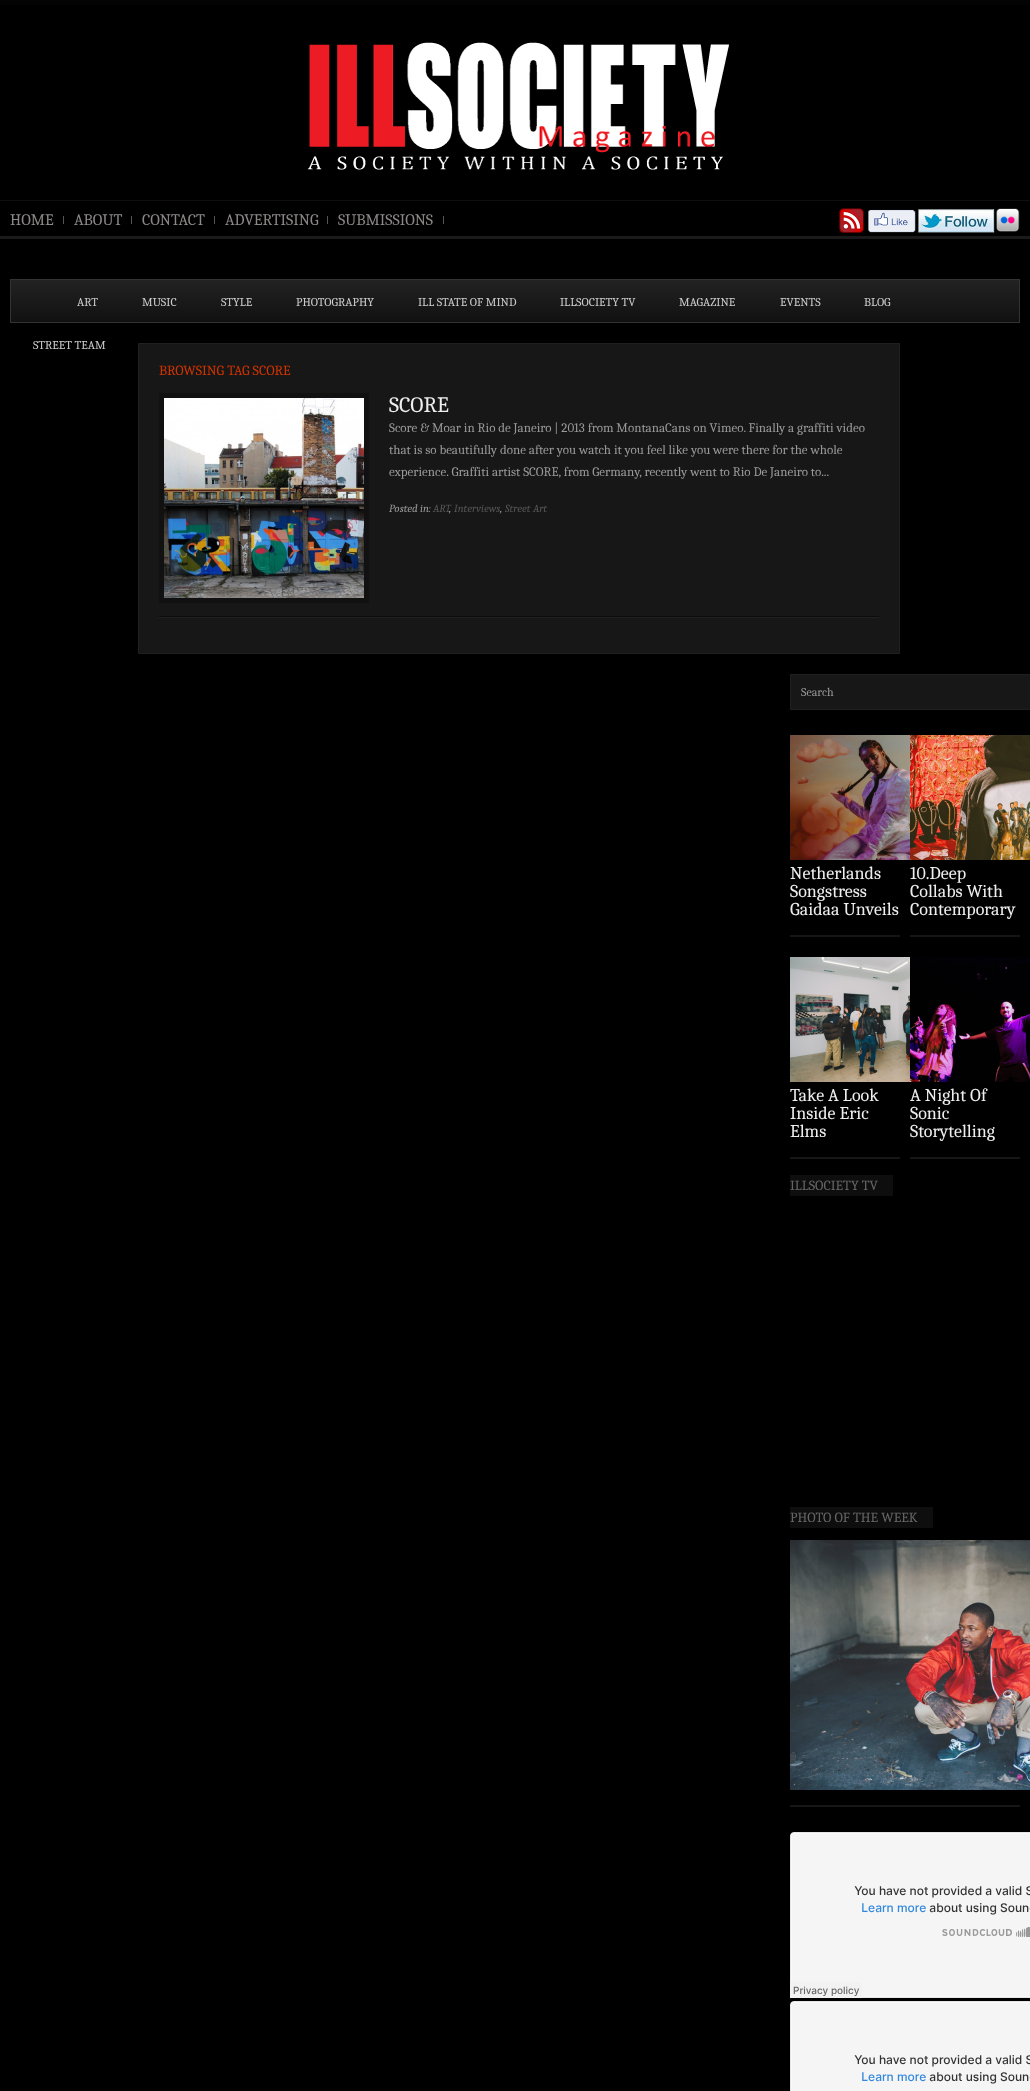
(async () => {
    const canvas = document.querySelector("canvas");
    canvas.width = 1030;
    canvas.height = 2091;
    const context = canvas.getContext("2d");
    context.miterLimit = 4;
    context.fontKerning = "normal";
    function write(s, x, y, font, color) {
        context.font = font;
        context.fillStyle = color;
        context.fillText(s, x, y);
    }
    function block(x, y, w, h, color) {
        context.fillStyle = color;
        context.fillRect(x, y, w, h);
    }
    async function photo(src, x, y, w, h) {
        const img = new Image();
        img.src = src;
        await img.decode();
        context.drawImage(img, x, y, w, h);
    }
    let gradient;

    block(0, 0, 1030, 2091, "rgb(0, 0, 0)");
    block(0, 0, 1030, 5, "rgb(3, 3, 3)");
    await photo("media/1.png", 307, 42, 422, 128);
    block(0, 200, 1030, 1, "rgb(15, 15, 15)");
    block(0, 236, 1030, 3, "rgb(26, 26, 26)");
    block(63, 216, 1, 8, "rgb(86, 86, 89)");
    write("HOME", 10, 225, "16px Caladea", "rgb(141, 136, 136)");
    block(131, 216, 1, 8, "rgb(86, 86, 89)");
    write("ABOUT", 74, 225, "16px Caladea", "rgb(141, 136, 136)");
    block(214, 216, 1, 8, "rgb(86, 86, 89)");
    write("CONTACT", 142, 225, "16px Caladea", "rgb(141, 136, 136)");
    block(327, 216, 1, 8, "rgb(86, 86, 89)");
    write("ADVERTISING", 225, 225, "16px Caladea", "rgb(141, 136, 136)");
    block(443, 216, 1, 8, "rgb(86, 86, 89)");
    write("SUBMISSIONS", 338, 225, "16px Caladea", "rgb(141, 136, 136)");
    await photo("media/2.png", 839, 208, 25, 25);
    await photo("media/3.png", 868, 209, 48, 24);
    await photo("media/4.png", 918, 209, 77, 24);
    await photo("media/5.png", 996, 208, 24, 24);
    gradient = context.createLinearGradient(11, 280, 11, 322);
    gradient.addColorStop(0, "rgb(34, 34, 34)");
    gradient.addColorStop(1, "rgb(17, 17, 17)");
    context.fillStyle = gradient;
    context.fillRect(11, 280, 1008, 42);
    context.strokeStyle = "rgb(51, 51, 51)";
    context.strokeRect(10.5, 279.5, 1009, 43);
    write("ART", 77, 306, "12px Caladea", "rgb(204, 204, 204)");
    write("MUSIC", 142, 306, "12px Caladea", "rgb(204, 204, 204)");
    write("STYLE", 221, 306, "12px Caladea", "rgb(204, 204, 204)");
    write("PHOTOGRAPHY", 296, 306, "12px Caladea", "rgb(204, 204, 204)");
    write("ILL STATE OF MIND", 418, 306, "12px Caladea", "rgb(204, 204, 204)");
    write("ILLSOCIETY TV", 560, 306, "12px Caladea", "rgb(204, 204, 204)");
    write("MAGAZINE", 679, 306, "12px Caladea", "rgb(204, 204, 204)");
    write("EVENTS", 780, 306, "12px Caladea", "rgb(204, 204, 204)");
    write("BLOG", 864, 306, "12px Caladea", "rgb(204, 204, 204)");
    write("STREET TEAM", 33, 349, "12px Caladea", "rgb(204, 204, 204)");
    context.fillStyle = "rgb(23, 23, 23)";
    context.beginPath();
    context.rect(138.5, 343.5, 761, 310);
    context.fill();
    context.strokeStyle = "rgb(32, 32, 32)";
    context.stroke();
    write("BROWSING TAG SCORE", 159, 375, "14px Caladea", "rgb(208, 51, 0)");
    await photo("media/6.png", 159, 616, 720, 2);
    block(159, 393, 210, 210, "rgb(17, 17, 17)");
    await photo("media/7.png", 164, 398, 200, 200);
    write("SCORE", 389, 412, "22px Caladea", "rgb(238, 238, 238)");
    write("Score & Moar in Rio de Janeiro | 2013 from MontanaCans on Vimeo. Finally a graffiti video", 389, 432, "13px Caladea", "rgb(153, 153, 153)");
    write("that is so beautifully done after you watch it you feel like you were there for the whole", 389, 454, "13px Caladea", "rgb(153, 153, 153)");
    write("experience. Graffiti artist SCORE, from Germany, recently went to Rio De Janeiro to...", 389, 476, "13px Caladea", "rgb(153, 153, 153)");
    write("Posted in:", 389, 512, "italic 11px Caladea", "rgb(153, 153, 153)");
    write("ART", 433, 512, "italic 11px Caladea", "rgb(85, 85, 85)");
    write("Interviews", 454, 512, "italic 11px Caladea", "rgb(85, 85, 85)");
    write("Street Art", 505, 512, "italic 11px Caladea", "rgb(85, 85, 85)");
    write(",", 449, 512, "italic 11px Caladea", "rgb(153, 153, 153)");
    write(",", 500, 512, "italic 11px Caladea", "rgb(153, 153, 153)");
    context.fillStyle = "rgb(23, 23, 23)";
    context.beginPath();
    context.rect(790.5, 674.5, 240, 35);
    context.fill();
    context.stroke();
    write("Search", 801, 696, "12px Caladea", "rgb(153, 153, 153)");
    await photo("media/8.png", 790, 735, 120, 125);
    write("Netherlands", 790, 879, "18px Caladea", "rgb(238, 238, 238)");
    write("Songstress", 790, 897, "18px Caladea", "rgb(238, 238, 238)");
    write("Gaidaa Unveils", 790, 915, "18px Caladea", "rgb(238, 238, 238)");
    block(790, 935, 110, 2, "rgb(22, 22, 22)");
    await photo("media/9.png", 910, 735, 120, 125);
    write("10.Deep", 910, 879, "18px Caladea", "rgb(238, 238, 238)");
    write("Collabs With", 910, 897, "18px Caladea", "rgb(238, 238, 238)");
    write("Contemporary", 910, 915, "18px Caladea", "rgb(238, 238, 238)");
    block(910, 935, 110, 2, "rgb(22, 22, 22)");
    await photo("media/10.png", 790, 957, 120, 125);
    write("Take A Look", 790, 1101, "18px Caladea", "rgb(238, 238, 238)");
    write("Inside Eric", 790, 1119, "18px Caladea", "rgb(238, 238, 238)");
    write("Elms", 790, 1137, "18px Caladea", "rgb(238, 238, 238)");
    block(790, 1157, 110, 2, "rgb(22, 22, 22)");
    await photo("media/11.png", 910, 957, 120, 125);
    write("A Night Of", 910, 1101, "18px Caladea", "rgb(238, 238, 238)");
    context.save();
    context.beginPath();
    context.rect(910, 1087, 110, 55);
    context.clip();
    write("Sonic", 910, 1119, "18px Caladea", "rgb(238, 238, 238)");
    write("Storytelling", 910, 1137, "18px Caladea", "rgb(238, 238, 238)");
    context.restore();
    block(910, 1157, 110, 2, "rgb(22, 22, 22)");
    block(790, 1175, 103, 21, "rgb(14, 14, 14)");
    write("ILLSOCIETY TV", 790, 1190, "14px Caladea", "rgb(102, 102, 102)");
    block(790, 1507, 143, 21, "rgb(14, 14, 14)");
    write("PHOTO OF THE WEEK", 790, 1522, "14px Caladea", "rgb(102, 102, 102)");
    await photo("media/12.png", 790, 1540, 240, 250);
    block(790, 1805, 230, 2, "rgb(22, 22, 22)");
    await photo("media/13.png", 790, 1832, 240, 166);
    await photo("media/14.png", 790, 2001, 240, 90);
})();
